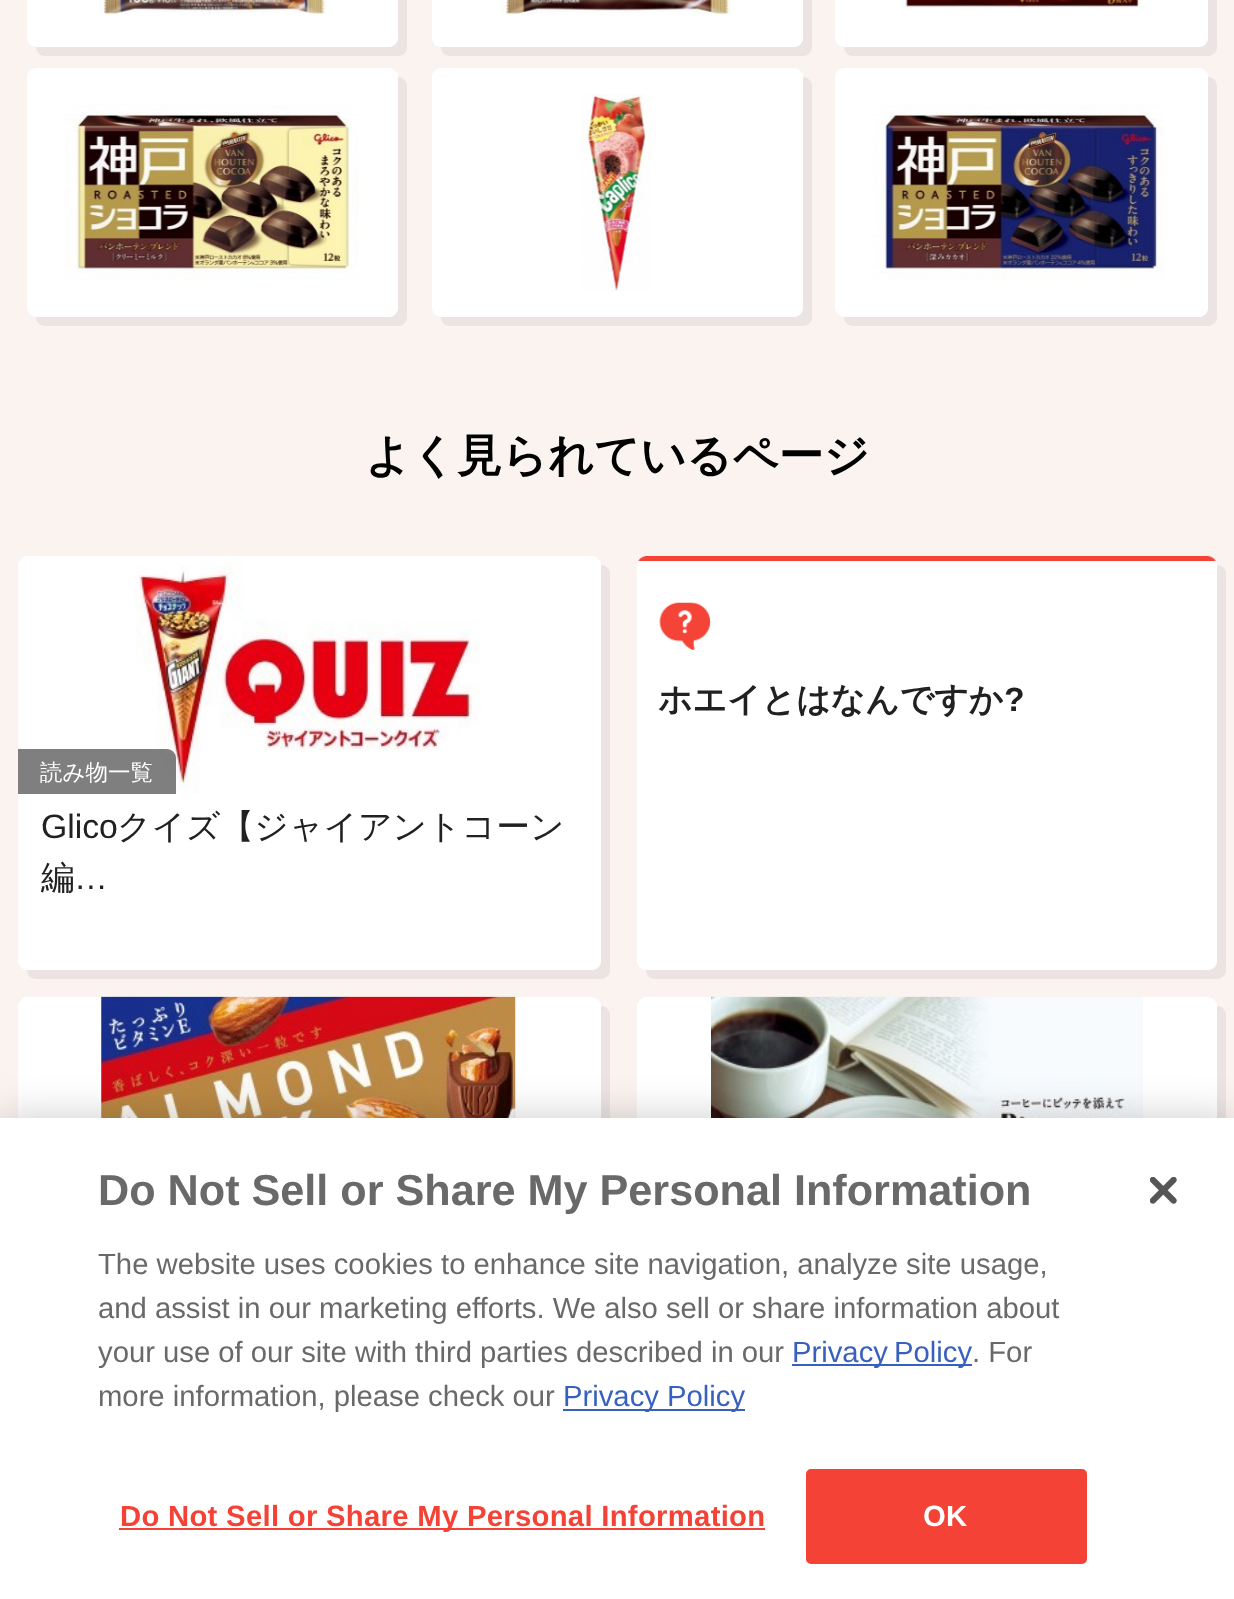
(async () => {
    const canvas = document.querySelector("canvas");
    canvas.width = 1234;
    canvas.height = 1599;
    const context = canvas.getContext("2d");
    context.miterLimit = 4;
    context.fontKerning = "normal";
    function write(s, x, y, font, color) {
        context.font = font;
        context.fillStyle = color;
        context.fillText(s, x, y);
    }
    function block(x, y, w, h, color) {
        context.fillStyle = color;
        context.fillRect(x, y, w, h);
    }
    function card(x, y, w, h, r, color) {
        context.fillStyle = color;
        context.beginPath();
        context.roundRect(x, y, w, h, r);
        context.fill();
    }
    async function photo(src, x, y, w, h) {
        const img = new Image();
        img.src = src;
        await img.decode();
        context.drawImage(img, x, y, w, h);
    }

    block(0, 0, 1234, 1599, "rgb(250, 243, 240)");
    context.fillStyle = "rgb(235, 228, 226)";
    context.beginPath();
    context.moveTo(36, 47);
    context.bezierCurveTo(36, 52, 40, 56, 45, 56);
    context.lineTo(398, 56);
    context.bezierCurveTo(403, 56, 407, 52, 407, 47);
    context.lineTo(407, -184);
    context.bezierCurveTo(407, -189, 403, -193, 398, -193);
    context.lineTo(398, 38);
    context.bezierCurveTo(398, 43, 394, 47, 389, 47);
    context.closePath();
    context.fill();
    card(27, -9, 371, 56, 9, "rgb(255, 255, 255)");
    await photo("media/1.png", 99, 0, 228, 16);
    context.fillStyle = "rgb(235, 228, 226)";
    context.beginPath();
    context.moveTo(441, 47);
    context.bezierCurveTo(441, 52, 445, 56, 450, 56);
    context.lineTo(803, 56);
    context.bezierCurveTo(808, 56, 812, 52, 812, 47);
    context.lineTo(812, -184);
    context.bezierCurveTo(812, -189, 808, -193, 803, -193);
    context.lineTo(803, 38);
    context.bezierCurveTo(803, 43, 799, 47, 794, 47);
    context.closePath();
    context.fill();
    card(432, -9, 371, 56, 9, "rgb(255, 255, 255)");
    await photo("media/2.png", 497, 0, 234, 15);
    context.fillStyle = "rgb(235, 228, 226)";
    context.beginPath();
    context.moveTo(844, 47);
    context.bezierCurveTo(844, 52, 848, 56, 853, 56);
    context.lineTo(1208, 56);
    context.bezierCurveTo(1213, 56, 1217, 52, 1217, 47);
    context.lineTo(1217, -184);
    context.bezierCurveTo(1217, -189, 1213, -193, 1208, -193);
    context.lineTo(1208, 38);
    context.bezierCurveTo(1208, 43, 1204, 47, 1199, 47);
    context.closePath();
    context.fill();
    card(835, -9, 373, 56, 9, "rgb(255, 255, 255)");
    await photo("media/3.png", 902, 0, 239, 9);
    context.fillStyle = "rgb(235, 228, 226)";
    context.beginPath();
    context.moveTo(36, 317);
    context.bezierCurveTo(36, 322, 40, 326, 45, 326);
    context.lineTo(398, 326);
    context.bezierCurveTo(403, 326, 407, 322, 407, 317);
    context.lineTo(407, 86);
    context.bezierCurveTo(407, 81, 403, 77, 398, 77);
    context.lineTo(398, 308);
    context.bezierCurveTo(398, 313, 394, 317, 389, 317);
    context.closePath();
    context.fill();
    card(27, 68, 371, 249, 9, "rgb(255, 255, 255)");
    await photo("media/4.png", 65, 104, 294, 177);
    context.fillStyle = "rgb(235, 228, 226)";
    context.beginPath();
    context.moveTo(441, 317);
    context.bezierCurveTo(441, 322, 445, 326, 450, 326);
    context.lineTo(803, 326);
    context.bezierCurveTo(808, 326, 812, 322, 812, 317);
    context.lineTo(812, 86);
    context.bezierCurveTo(812, 81, 808, 77, 803, 77);
    context.lineTo(803, 308);
    context.bezierCurveTo(803, 313, 799, 317, 794, 317);
    context.closePath();
    context.fill();
    card(432, 68, 371, 249, 9, "rgb(255, 255, 255)");
    await photo("media/5.png", 581, 94, 71, 198);
    context.fillStyle = "rgb(235, 228, 226)";
    context.beginPath();
    context.moveTo(844, 317);
    context.bezierCurveTo(844, 322, 848, 326, 853, 326);
    context.lineTo(1208, 326);
    context.bezierCurveTo(1213, 326, 1217, 322, 1217, 317);
    context.lineTo(1217, 86);
    context.bezierCurveTo(1217, 81, 1213, 77, 1208, 77);
    context.lineTo(1208, 308);
    context.bezierCurveTo(1208, 313, 1204, 317, 1199, 317);
    context.closePath();
    context.fill();
    card(835, 68, 373, 249, 9, "rgb(255, 255, 255)");
    await photo("media/6.png", 873, 104, 293, 177);
    write("よく見られているページ", 365, 471, "bold 45px WenQuanYi Zen Hei", "rgb(0, 0, 0)");
    context.fillStyle = "rgb(235, 228, 226)";
    context.beginPath();
    context.moveTo(646, 970);
    context.bezierCurveTo(646, 975, 650, 979, 655, 979);
    context.lineTo(1217, 979);
    context.bezierCurveTo(1222, 979, 1226, 975, 1226, 970);
    context.lineTo(1226, 574);
    context.bezierCurveTo(1226, 569, 1222, 565, 1217, 565);
    context.lineTo(1217, 961);
    context.bezierCurveTo(1217, 966, 1213, 970, 1208, 970);
    context.closePath();
    context.fill();
    card(637, 556, 580, 414, 9, "rgb(255, 255, 255)");
    context.save();
    context.beginPath();
    context.roundRect(637, 556, 580, 414, 9);
    context.clip();
    block(637, 556, 580, 5, "rgb(244, 67, 54)");
    context.restore();
    await photo("media/7.png", 638, 556, 8, 6);
    await photo("media/8.png", 1208, 556, 8, 5);
    await photo("media/9.png", 659, 602, 52, 48);
    write("ホエイとはなんですか", 658, 711, "bold 33.75px WenQuanYi Zen Hei", "rgb(33, 33, 33)");
    write("?", 1004, 711, "bold 33.75px Liberation Sans", "rgb(33, 33, 33)");
    context.fillStyle = "rgb(235, 228, 226)";
    context.beginPath();
    context.moveTo(27, 970);
    context.bezierCurveTo(27, 975, 31, 979, 36, 979);
    context.lineTo(601, 979);
    context.bezierCurveTo(606, 979, 610, 975, 610, 970);
    context.lineTo(610, 574);
    context.bezierCurveTo(610, 569, 606, 565, 601, 565);
    context.lineTo(601, 961);
    context.bezierCurveTo(601, 966, 597, 970, 592, 970);
    context.closePath();
    context.fill();
    card(18, 556, 583, 414, 9, "rgb(255, 255, 255)");
    context.beginPath();
    context.roundRect(18, 556, 583, 243, [9, 9, 0, 0]);
    context.fill();
    await photo("media/10.png", 135, 556, 346, 238);
    await photo("media/11.png", 19, 557, 4, 5);
    await photo("media/12.png", 596, 557, 4, 4);
    context.fillStyle = "rgba(0, 0, 0, 0.5)";
    context.beginPath();
    context.roundRect(18, 749, 158, 45, [0, 9, 0, 0]);
    context.fill();
    write("読み物一覧", 40, 780, "500 22.5px WenQuanYi Zen Hei", "rgb(255, 255, 255)");
    write("Glico", 41, 838, "33.75px Liberation Sans", "rgb(33, 33, 33)");
    write("クイズ【ジャイアントコーン", 117, 838, "500 33.75px WenQuanYi Zen Hei", "rgb(33, 33, 33)");
    write("編", 41, 889, "500 33.75px WenQuanYi Zen Hei", "rgb(33, 33, 33)");
    write("…", 74, 889, "33.75px Liberation Sans", "rgb(33, 33, 33)");
    context.fillStyle = "rgb(235, 228, 226)";
    context.beginPath();
    context.moveTo(27, 1411);
    context.bezierCurveTo(27, 1416, 31, 1420, 36, 1420);
    context.lineTo(601, 1420);
    context.bezierCurveTo(606, 1420, 610, 1416, 610, 1411);
    context.lineTo(610, 1015);
    context.bezierCurveTo(610, 1010, 606, 1006, 601, 1006);
    context.lineTo(601, 1402);
    context.bezierCurveTo(601, 1407, 597, 1411, 592, 1411);
    context.closePath();
    context.fill();
    context.fillStyle = "rgb(255, 255, 255)";
    context.beginPath();
    context.roundRect(18, 997, 583, 243, [9, 9, 0, 0]);
    context.fill();
    await photo("media/13.png", 101, 996, 415, 122);
    await photo("media/11.png", 19, 998, 4, 5);
    await photo("media/12.png", 596, 998, 4, 4);
    context.fillStyle = "rgb(235, 228, 226)";
    context.beginPath();
    context.moveTo(646, 1411);
    context.bezierCurveTo(646, 1416, 650, 1420, 655, 1420);
    context.lineTo(1217, 1420);
    context.bezierCurveTo(1222, 1420, 1226, 1416, 1226, 1411);
    context.lineTo(1226, 1015);
    context.bezierCurveTo(1226, 1010, 1222, 1006, 1217, 1006);
    context.lineTo(1217, 1402);
    context.bezierCurveTo(1217, 1407, 1213, 1411, 1208, 1411);
    context.closePath();
    context.fill();
    context.fillStyle = "rgb(255, 255, 255)";
    context.beginPath();
    context.roundRect(637, 997, 580, 243, [9, 9, 0, 0]);
    context.fill();
    await photo("media/14.png", 711, 996, 432, 122);
    await photo("media/15.png", 638, 998, 4, 5);
    context.fillStyle = "rgba(0, 0, 0, 0.2)";
    context.filter = "blur(20px)";
    context.beginPath();
    context.rect(0, 1118, 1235, 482);
    context.fill();
    context.filter = "none";
    block(0, 1118, 1234, 481, "rgb(255, 255, 255)");
    write("Do Not Sell or Share My Personal Information", 98, 1205, "bold 43.2px Liberation Sans", "rgb(105, 105, 105)");
    write("The website uses cookies to enhance site navigation, analyze site usage,", 98, 1274, "29.25px Liberation Sans", "rgb(105, 105, 105)");
    write("and assist in our marketing efforts. We also sell or share information about", 98, 1318, "29.25px Liberation Sans", "rgb(105, 105, 105)");
    write("your use of our site with third parties described in our", 98, 1362, "29.25px Liberation Sans", "rgb(105, 105, 105)");
    block(792, 1364, 180, 2, "rgb(56, 96, 190)");
    context.wordSpacing = "-2px";
    write("Privacy Policy", 792, 1362, "29.25px Liberation Sans", "rgb(56, 96, 190)");
    context.wordSpacing = "0px";
    write(". For", 972, 1362, "29.25px Liberation Sans", "rgb(105, 105, 105)");
    write("more information, please check our", 98, 1406, "29.25px Liberation Sans", "rgb(105, 105, 105)");
    block(563, 1409, 182, 2, "rgb(56, 96, 190)");
    write("Privacy Policy", 563, 1406, "29.25px Liberation Sans", "rgb(56, 96, 190)");
    block(119, 1528, 646, 2, "rgb(244, 67, 54)");
    context.letterSpacing = "0.3px";
    write("Do Not Sell or Share My Personal Information", 120, 1526, "bold 29.25px Liberation Sans", "rgb(244, 67, 54)");
    context.beginPath();
    context.roundRect(807, 1470, 279, 93, 4);
    context.fill();
    context.strokeStyle = "rgb(244, 67, 54)";
    context.lineWidth = 2;
    context.stroke();
    write("OK", 923, 1526, "bold 29.25px Liberation Sans", "rgb(255, 255, 255)");
    await photo("media/16.png", 1150, 1177, 27, 27);
})();
